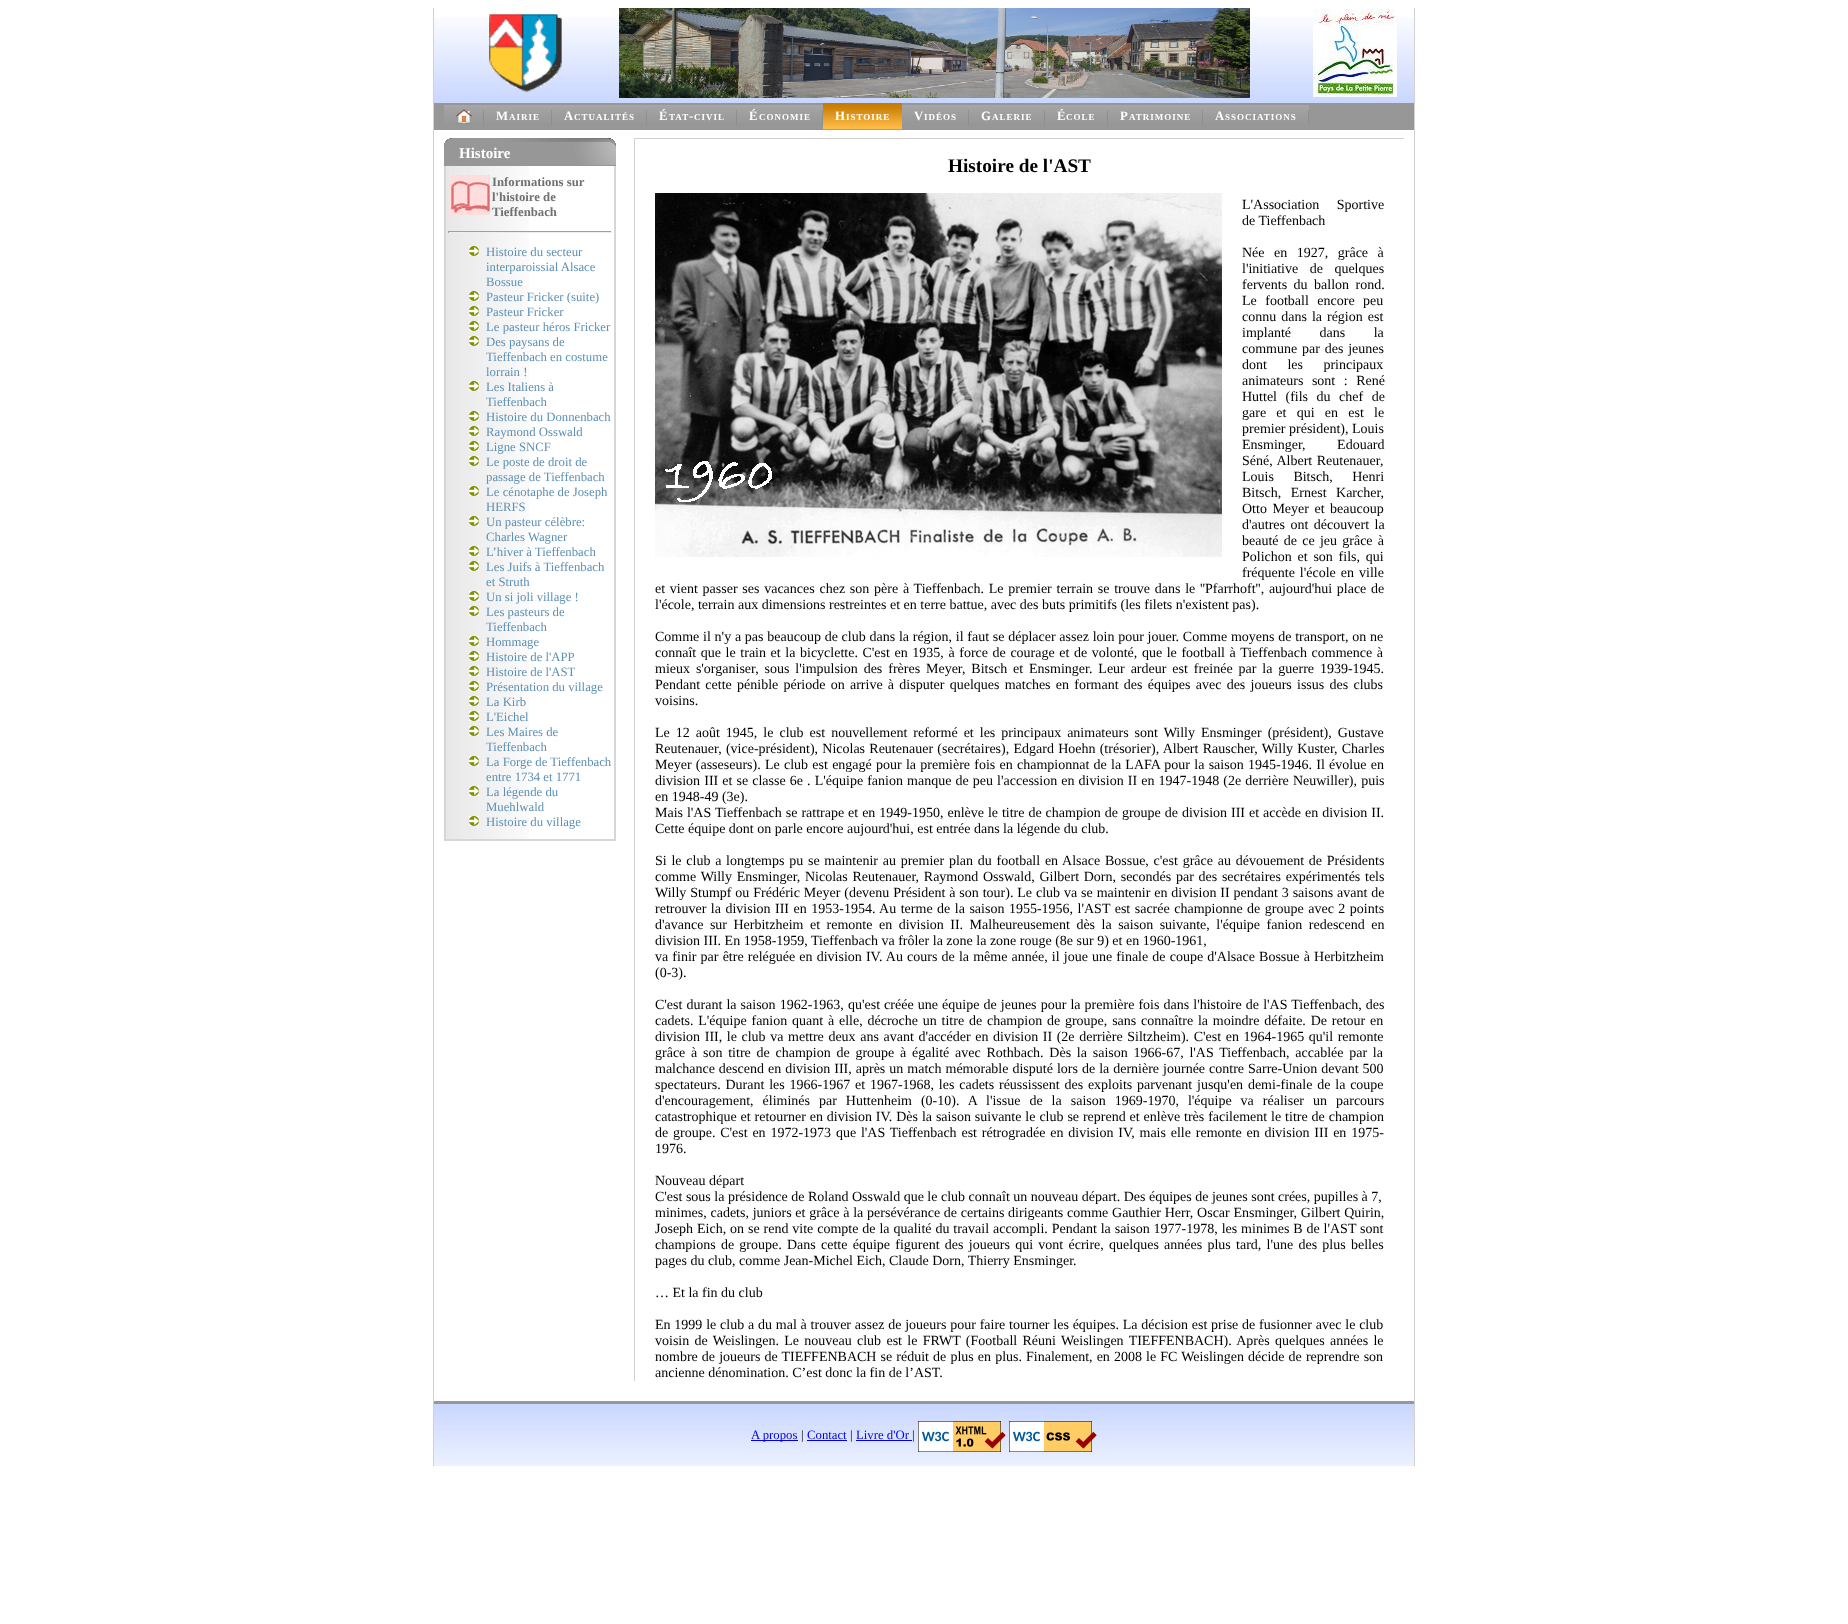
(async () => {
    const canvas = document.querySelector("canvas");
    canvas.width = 1848;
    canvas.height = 1624;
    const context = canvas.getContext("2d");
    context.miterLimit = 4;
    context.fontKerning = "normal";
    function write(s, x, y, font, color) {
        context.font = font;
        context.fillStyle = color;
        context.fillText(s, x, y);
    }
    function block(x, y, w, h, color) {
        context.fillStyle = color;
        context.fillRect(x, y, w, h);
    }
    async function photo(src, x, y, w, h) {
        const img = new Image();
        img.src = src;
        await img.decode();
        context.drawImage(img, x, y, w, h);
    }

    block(0, 0, 1848, 1624, "rgb(255, 255, 255)");
    block(1414, 8, 1, 1458, "rgb(209, 209, 209)");
    block(433, 8, 1, 1458, "rgb(209, 209, 209)");
    await photo("media/1.png", 434, 17, 980, 113);
    await photo("media/2.png", 489, 14, 73, 78);
    await photo("media/3.png", 619, 8, 631, 90);
    await photo("media/4.png", 1313, 9, 84, 88);
    await photo("media/5.png", 444, 105, 40, 20);
    await photo("media/6.png", 456, 109, 16, 15);
    await photo("media/7.png", 484, 105, 68, 20);
    context.letterSpacing = "1px";
    write("M", 496, 120, "bold 12.75px Liberation Serif", "rgb(255, 255, 255)");
    write("AIRIE", 509, 120, "bold 9px Liberation Serif", "rgb(255, 255, 255)");
    await photo("media/8.png", 552, 105, 95, 20);
    write("A", 564, 120, "bold 12.75px Liberation Serif", "rgb(255, 255, 255)");
    write("CTUALITÉS", 574, 120, "bold 9px Liberation Serif", "rgb(255, 255, 255)");
    await photo("media/9.png", 647, 105, 90, 20);
    write("É", 659, 120, "bold 12.75px Liberation Serif", "rgb(255, 255, 255)");
    write("TAT", 669, 120, "bold 9px Liberation Serif", "rgb(255, 255, 255)");
    write("-", 689, 120, "bold 12.75px Liberation Serif", "rgb(255, 255, 255)");
    write("CIVIL", 694, 120, "bold 9px Liberation Serif", "rgb(255, 255, 255)");
    await photo("media/10.png", 737, 105, 86, 20);
    write("É", 749, 120, "bold 12.75px Liberation Serif", "rgb(255, 255, 255)");
    write("CONOMIE", 759, 120, "bold 9px Liberation Serif", "rgb(255, 255, 255)");
    await photo("media/11.png", 823, 103, 79, 27);
    write("H", 835, 120, "bold 12.75px Liberation Serif", "rgb(255, 255, 255)");
    write("ISTOIRE", 846, 120, "bold 9px Liberation Serif", "rgb(255, 255, 255)");
    await photo("media/12.png", 902, 105, 67, 20);
    write("V", 914, 120, "bold 12.75px Liberation Serif", "rgb(255, 255, 255)");
    write("IDÉOS", 924, 120, "bold 9px Liberation Serif", "rgb(255, 255, 255)");
    await photo("media/13.png", 969, 105, 76, 20);
    write("G", 981, 120, "bold 12.75px Liberation Serif", "rgb(255, 255, 255)");
    write("ALERIE", 992, 120, "bold 9px Liberation Serif", "rgb(255, 255, 255)");
    await photo("media/14.png", 1045, 105, 63, 20);
    write("É", 1057, 120, "bold 12.75px Liberation Serif", "rgb(255, 255, 255)");
    write("COLE", 1066, 120, "bold 9px Liberation Serif", "rgb(255, 255, 255)");
    await photo("media/8.png", 1108, 105, 95, 20);
    write("P", 1120, 120, "bold 12.75px Liberation Serif", "rgb(255, 255, 255)");
    write("ATRIMOINE", 1129, 120, "bold 9px Liberation Serif", "rgb(255, 255, 255)");
    await photo("media/15.png", 1203, 105, 106, 20);
    write("A", 1215, 120, "bold 12.75px Liberation Serif", "rgb(255, 255, 255)");
    write("SSOCIATIONS", 1225, 120, "bold 9px Liberation Serif", "rgb(255, 255, 255)");
    await photo("media/16.png", 444, 138, 172, 28);
    context.letterSpacing = "0px";
    write("Histoire", 459, 158, "bold 15px Liberation Serif", "rgb(255, 255, 255)");
    await photo("media/17.png", 446, 166, 83, 673);
    block(614, 166, 2, 675, "rgb(214, 214, 214)");
    block(444, 839, 172, 2, "rgb(214, 214, 214)");
    block(444, 166, 2, 675, "rgb(214, 214, 214)");
    await photo("media/18.png", 450, 175, 40, 40);
    write("Informations sur", 492, 186, "bold 12.75px Liberation Serif", "rgb(112, 112, 112)");
    write("l'histoire de", 492, 201, "bold 12.75px Liberation Serif", "rgb(112, 112, 112)");
    write("Tieffenbach", 492, 216, "bold 12.75px Liberation Serif", "rgb(112, 112, 112)");
    block(448, 231, 164, 1, "rgb(159, 159, 159)");
    block(611, 231, 1, 2, "rgb(238, 238, 238)");
    block(448, 232, 164, 1, "rgb(238, 238, 238)");
    block(448, 231, 1, 2, "rgb(159, 159, 159)");
    await photo("media/19.png", 469, 246, 10, 10);
    write("Histoire du secteur", 486, 256, "12.75px Liberation Serif", "rgb(93, 144, 181)");
    write("interparoissial Alsace", 486, 271, "12.75px Liberation Serif", "rgb(93, 144, 181)");
    write("Bossue", 486, 286, "12.75px Liberation Serif", "rgb(93, 144, 181)");
    await photo("media/19.png", 469, 291, 10, 10);
    write("Pasteur Fricker (suite)", 486, 301, "12.75px Liberation Serif", "rgb(93, 144, 181)");
    await photo("media/19.png", 469, 306, 10, 10);
    write("Pasteur Fricker", 486, 316, "12.75px Liberation Serif", "rgb(93, 144, 181)");
    await photo("media/19.png", 469, 321, 10, 10);
    write("Le pasteur héros Fricker", 486, 331, "12.75px Liberation Serif", "rgb(93, 144, 181)");
    await photo("media/19.png", 469, 336, 10, 10);
    write("Des paysans de", 486, 346, "12.75px Liberation Serif", "rgb(93, 144, 181)");
    write("Tieffenbach en costume", 486, 361, "12.75px Liberation Serif", "rgb(93, 144, 181)");
    write("lorrain !", 486, 376, "12.75px Liberation Serif", "rgb(93, 144, 181)");
    await photo("media/19.png", 469, 381, 10, 10);
    write("Les Italiens à", 486, 391, "12.75px Liberation Serif", "rgb(93, 144, 181)");
    write("Tieffenbach", 486, 406, "12.75px Liberation Serif", "rgb(93, 144, 181)");
    await photo("media/19.png", 469, 411, 10, 10);
    write("Histoire du Donnenbach", 486, 421, "12.75px Liberation Serif", "rgb(93, 144, 181)");
    await photo("media/19.png", 469, 426, 10, 10);
    write("Raymond Osswald", 486, 436, "12.75px Liberation Serif", "rgb(93, 144, 181)");
    await photo("media/19.png", 469, 441, 10, 10);
    write("Ligne SNCF", 486, 451, "12.75px Liberation Serif", "rgb(93, 144, 181)");
    await photo("media/19.png", 469, 456, 10, 10);
    write("Le poste de droit de", 486, 466, "12.75px Liberation Serif", "rgb(93, 144, 181)");
    write("passage de Tieffenbach", 486, 481, "12.75px Liberation Serif", "rgb(93, 144, 181)");
    await photo("media/19.png", 469, 486, 10, 10);
    write("Le cénotaphe de Joseph", 486, 496, "12.75px Liberation Serif", "rgb(93, 144, 181)");
    write("HERFS", 486, 511, "12.75px Liberation Serif", "rgb(93, 144, 181)");
    await photo("media/19.png", 469, 516, 10, 10);
    write("Un pasteur célèbre:", 486, 526, "12.75px Liberation Serif", "rgb(93, 144, 181)");
    write("Charles Wagner", 486, 541, "12.75px Liberation Serif", "rgb(93, 144, 181)");
    await photo("media/19.png", 469, 546, 10, 10);
    write("L’hiver à Tieffenbach", 486, 556, "12.75px Liberation Serif", "rgb(93, 144, 181)");
    await photo("media/19.png", 469, 561, 10, 10);
    write("Les Juifs à Tieffenbach", 486, 571, "12.75px Liberation Serif", "rgb(93, 144, 181)");
    write("et Struth", 486, 586, "12.75px Liberation Serif", "rgb(93, 144, 181)");
    await photo("media/19.png", 469, 591, 10, 10);
    write("Un si joli village !", 486, 601, "12.75px Liberation Serif", "rgb(93, 144, 181)");
    await photo("media/19.png", 469, 606, 10, 10);
    write("Les pasteurs de", 486, 616, "12.75px Liberation Serif", "rgb(93, 144, 181)");
    write("Tieffenbach", 486, 631, "12.75px Liberation Serif", "rgb(93, 144, 181)");
    await photo("media/19.png", 469, 636, 10, 10);
    write("Hommage", 486, 646, "12.75px Liberation Serif", "rgb(93, 144, 181)");
    await photo("media/19.png", 469, 651, 10, 10);
    write("Histoire de l'APP", 486, 661, "12.75px Liberation Serif", "rgb(93, 144, 181)");
    await photo("media/19.png", 469, 666, 10, 10);
    write("Histoire de l'AST", 486, 676, "12.75px Liberation Serif", "rgb(93, 144, 181)");
    await photo("media/19.png", 469, 681, 10, 10);
    write("Présentation du village", 486, 691, "12.75px Liberation Serif", "rgb(93, 144, 181)");
    await photo("media/19.png", 469, 696, 10, 10);
    write("La Kirb", 486, 706, "12.75px Liberation Serif", "rgb(93, 144, 181)");
    await photo("media/19.png", 469, 711, 10, 10);
    write("L'Eichel", 486, 721, "12.75px Liberation Serif", "rgb(93, 144, 181)");
    await photo("media/19.png", 469, 726, 10, 10);
    write("Les Maires de", 486, 736, "12.75px Liberation Serif", "rgb(93, 144, 181)");
    write("Tieffenbach", 486, 751, "12.75px Liberation Serif", "rgb(93, 144, 181)");
    await photo("media/19.png", 469, 756, 10, 10);
    write("La Forge de Tieffenbach", 486, 766, "12.75px Liberation Serif", "rgb(93, 144, 181)");
    write("entre 1734 et 1771", 486, 781, "12.75px Liberation Serif", "rgb(93, 144, 181)");
    await photo("media/19.png", 469, 786, 10, 10);
    write("La légende du", 486, 796, "12.75px Liberation Serif", "rgb(93, 144, 181)");
    write("Muehlwald", 486, 811, "12.75px Liberation Serif", "rgb(93, 144, 181)");
    await photo("media/19.png", 469, 816, 10, 10);
    write("Histoire du village", 486, 826, "12.75px Liberation Serif", "rgb(93, 144, 181)");
    block(634, 138, 770, 1, "rgb(209, 209, 209)");
    block(634, 138, 1, 1243, "rgb(209, 209, 209)");
    write("Histoire de l'AST", 948, 172, "bold 19.25px Liberation Serif", "rgb(0, 0, 0)");
    await photo("media/20.png", 655, 193, 567, 364);
    context.wordSpacing = "14px";
    write("L'Association Sportive", 1242, 209, "14px Liberation Serif", "rgb(0, 0, 0)");
    context.wordSpacing = "0px";
    write("de Tieffenbach", 1242, 225, "14px Liberation Serif", "rgb(0, 0, 0)");
    context.wordSpacing = "6px";
    write("Née en 1927, grâce à", 1242, 257, "14px Liberation Serif", "rgb(0, 0, 0)");
    context.wordSpacing = "8px";
    write("l'initiative de quelques", 1242, 273, "14px Liberation Serif", "rgb(0, 0, 0)");
    context.wordSpacing = "3px";
    write("fervents du ballon rond.", 1242, 289, "14px Liberation Serif", "rgb(0, 0, 0)");
    context.wordSpacing = "5px";
    write("Le football encore peu", 1242, 305, "14px Liberation Serif", "rgb(0, 0, 0)");
    context.wordSpacing = "1.5px";
    write("connu dans la région est", 1242, 321, "14px Liberation Serif", "rgb(0, 0, 0)");
    context.wordSpacing = "25px";
    write("implanté dans la", 1242, 337, "14px Liberation Serif", "rgb(0, 0, 0)");
    context.wordSpacing = "1.3px";
    write("commune par des jeunes", 1242, 353, "14px Liberation Serif", "rgb(0, 0, 0)");
    context.wordSpacing = "17px";
    write("dont les principaux", 1242, 369, "14px Liberation Serif", "rgb(0, 0, 0)");
    context.wordSpacing = "5px";
    write("animateurs sont : René", 1242, 385, "14px Liberation Serif", "rgb(0, 0, 0)");
    write("Huttel (fils du chef de", 1242, 401, "14px Liberation Serif", "rgb(0, 0, 0)");
    context.wordSpacing = "6.75px";
    write("gare et qui en est le", 1242, 417, "14px Liberation Serif", "rgb(0, 0, 0)");
    context.wordSpacing = "0px";
    write("premier président), Louis", 1242, 433, "14px Liberation Serif", "rgb(0, 0, 0)");
    context.wordSpacing = "28px";
    write("Ensminger, Edouard", 1242, 449, "14px Liberation Serif", "rgb(0, 0, 0)");
    context.wordSpacing = "1px";
    write("Séné, Albert Reutenauer,", 1242, 465, "14px Liberation Serif", "rgb(0, 0, 0)");
    context.wordSpacing = "16px";
    write("Louis Bitsch, Henri", 1242, 481, "14px Liberation Serif", "rgb(0, 0, 0)");
    context.wordSpacing = "6px";
    write("Bitsch, Ernest Karcher,", 1242, 497, "14px Liberation Serif", "rgb(0, 0, 0)");
    context.wordSpacing = "2px";
    write("Otto Meyer et beaucoup", 1242, 513, "14px Liberation Serif", "rgb(0, 0, 0)");
    write("d'autres ont découvert la", 1242, 529, "14px Liberation Serif", "rgb(0, 0, 0)");
    context.wordSpacing = "1.75px";
    write("beauté de ce jeu grâce à", 1242, 545, "14px Liberation Serif", "rgb(0, 0, 0)");
    context.wordSpacing = "2.25px";
    write("Polichon et son fils, qui", 1242, 561, "14px Liberation Serif", "rgb(0, 0, 0)");
    context.wordSpacing = "1.5px";
    write("fréquente l'école en ville", 1242, 577, "14px Liberation Serif", "rgb(0, 0, 0)");
    context.wordSpacing = "1.25px";
    write("et vient passer ses vacances chez son père à Tieffenbach. Le premier terrain se trouve dans le ''Pfarrhoft'', aujourd'hui place de", 655, 593, "14px Liberation Serif", "rgb(0, 0, 0)");
    context.wordSpacing = "0px";
    write("l'école, terrain aux dimensions restreintes et en terre battue, avec des buts primitifs (les filets n'existent pas).", 655, 609, "14px Liberation Serif", "rgb(0, 0, 0)");
    context.wordSpacing = "0.25px";
    write("Comme il n'y a pas beaucoup de club dans la région, il faut se déplacer assez loin pour jouer. Comme moyens de transport, on ne", 655, 641, "14px Liberation Serif", "rgb(0, 0, 0)");
    context.wordSpacing = "1.1px";
    write("connaît que le train et la bicyclette. C'est en 1935, à force de courage et de volonté, que le football à Tieffenbach commence à", 655, 657, "14px Liberation Serif", "rgb(0, 0, 0)");
    context.wordSpacing = "2.4px";
    write("mieux s'organiser, sous l'impulsion des frères Meyer, Bitsch et Ensminger. Leur ardeur est freinée par la guerre 1939-1945.", 655, 673, "14px Liberation Serif", "rgb(0, 0, 0)");
    context.wordSpacing = "1.75px";
    write("Pendant cette pénible période on arrive à disputer quelques matches en formant des équipes avec des joueurs issus des clubs", 655, 689, "14px Liberation Serif", "rgb(0, 0, 0)");
    context.wordSpacing = "0px";
    write("voisins.", 655, 705, "14px Liberation Serif", "rgb(0, 0, 0)");
    context.wordSpacing = "2.5px";
    write("Le 12 août 1945, le club est nouvellement reformé et les principaux animateurs sont Willy Ensminger (président), Gustave", 655, 737, "14px Liberation Serif", "rgb(0, 0, 0)");
    context.wordSpacing = "0.75px";
    write("Reutenauer, (vice-président), Nicolas Reutenauer (secrétaires), Edgard Hoehn (trésorier), Albert Rauscher, Willy Kuster, Charles", 655, 753, "14px Liberation Serif", "rgb(0, 0, 0)");
    write("Meyer (asseseurs). Le club est engagé pour la première fois en championnat de la LAFA pour la saison 1945-1946. Il évolue en", 655, 769, "14px Liberation Serif", "rgb(0, 0, 0)");
    context.wordSpacing = "0.6px";
    write("division III et se classe 6e . L'équipe fanion manque de peu l'accession en division II en 1947-1948 (2e derrière Neuwiller), puis", 655, 785, "14px Liberation Serif", "rgb(0, 0, 0)");
    context.wordSpacing = "0px";
    write("en 1948-49 (3e).", 655, 801, "14px Liberation Serif", "rgb(0, 0, 0)");
    context.wordSpacing = "0.45px";
    write("Mais l'AS Tieffenbach se rattrape et en 1949-1950, enlève le titre de champion de groupe de division III et accède en division II.", 655, 817, "14px Liberation Serif", "rgb(0, 0, 0)");
    context.wordSpacing = "0px";
    write("Cette équipe dont on parle encore aujourd'hui, est entrée dans la légende du club.", 655, 833, "14px Liberation Serif", "rgb(0, 0, 0)");
    context.wordSpacing = "1.25px";
    write("Si le club a longtemps pu se maintenir au premier plan du football en Alsace Bossue, c'est grâce au dévouement de Présidents", 655, 865, "14px Liberation Serif", "rgb(0, 0, 0)");
    context.wordSpacing = "1.2px";
    write("comme Willy Ensminger, Nicolas Reutenauer, Raymond Osswald, Gilbert Dorn, secondés par des secrétaires expérimentés tels", 655, 881, "14px Liberation Serif", "rgb(0, 0, 0)");
    context.wordSpacing = "0.4px";
    write("Willy Stumpf ou Frédéric Meyer (devenu Président à son tour). Le club va se maintenir en division II pendant 3 saisons avant de", 655, 897, "14px Liberation Serif", "rgb(0, 0, 0)");
    context.wordSpacing = "1px";
    write("retrouver la division III en 1953-1954. Au terme de la saison 1955-1956, l'AST est sacrée championne de groupe avec 2 points", 655, 913, "14px Liberation Serif", "rgb(0, 0, 0)");
    context.wordSpacing = "3px";
    write("d'avance sur Herbitzheim et remonte en division II. Malheureusement dès la saison suivante, l'équipe fanion redescend en", 655, 929, "14px Liberation Serif", "rgb(0, 0, 0)");
    context.wordSpacing = "0px";
    write("division III. En 1958-1959, Tieffenbach va frôler la zone la zone rouge (8e sur 9) et en 1960-1961,", 655, 945, "14px Liberation Serif", "rgb(0, 0, 0)");
    context.wordSpacing = "0.65px";
    write("va finir par être reléguée en division IV. Au cours de la même année, il joue une finale de coupe d'Alsace Bossue à Herbitzheim", 655, 961, "14px Liberation Serif", "rgb(0, 0, 0)");
    context.wordSpacing = "0px";
    write("(0-3).", 655, 977, "14px Liberation Serif", "rgb(0, 0, 0)");
    context.wordSpacing = "0.6px";
    write("C'est durant la saison 1962-1963, qu'est créée une équipe de jeunes pour la première fois dans l'histoire de l'AS Tieffenbach, des", 655, 1009, "14px Liberation Serif", "rgb(0, 0, 0)");
    context.wordSpacing = "1.3px";
    write("cadets. L'équipe fanion quant à elle, décroche un titre de champion de groupe, sans connaître la moindre défaite. De retour en", 655, 1025, "14px Liberation Serif", "rgb(0, 0, 0)");
    context.wordSpacing = "1.1px";
    write("division III, le club va mettre deux ans avant d'accéder en division II (2e derrière Siltzheim). C'est en 1964-1965 qu'il remonte", 655, 1041, "14px Liberation Serif", "rgb(0, 0, 0)");
    context.wordSpacing = "2.25px";
    write("grâce à son titre de champion de groupe à égalité avec Rothbach. Dès la saison 1966-67, l'AS Tieffenbach, accablée par la", 655, 1057, "14px Liberation Serif", "rgb(0, 0, 0)");
    context.wordSpacing = "0.5px";
    write("malchance descend en division III, après un match mémorable disputé lors de la dernière journée contre Sarre-Union devant 500", 655, 1073, "14px Liberation Serif", "rgb(0, 0, 0)");
    context.wordSpacing = "1.3px";
    write("spectateurs. Durant les 1966-1967 et 1967-1968, les cadets réussissent des exploits parvenant jusqu'en demi-finale de la coupe", 655, 1089, "14px Liberation Serif", "rgb(0, 0, 0)");
    context.wordSpacing = "5.5px";
    write("d'encouragement, éliminés par Huttenheim (0-10). A l'issue de la saison 1969-1970, l'équipe va réaliser un parcours", 655, 1105, "14px Liberation Serif", "rgb(0, 0, 0)");
    context.wordSpacing = "0.4px";
    write("catastrophique et retourner en division IV. Dès la saison suivante le club se reprend et enlève très facilement le titre de champion", 655, 1121, "14px Liberation Serif", "rgb(0, 0, 0)");
    context.wordSpacing = "1.3px";
    write("de groupe. C'est en 1972-1973 que l'AS Tieffenbach est rétrogradée en division IV, mais elle remonte en division III en 1975-", 655, 1137, "14px Liberation Serif", "rgb(0, 0, 0)");
    context.wordSpacing = "0px";
    write("1976.", 655, 1153, "14px Liberation Serif", "rgb(0, 0, 0)");
    write("Nouveau départ", 655, 1185, "14px Liberation Serif", "rgb(0, 0, 0)");
    write("C'est sous la présidence de Roland Osswald que le club connaît un nouveau départ. Des équipes de jeunes sont crées, pupilles à 7,", 655, 1201, "14px Liberation Serif", "rgb(0, 0, 0)");
    context.wordSpacing = "0.25px";
    write("minimes, cadets, juniors et grâce à la persévérance de certains dirigeants comme Gauthier Herr, Oscar Ensminger, Gilbert Quirin,", 655, 1217, "14px Liberation Serif", "rgb(0, 0, 0)");
    context.wordSpacing = "0.4px";
    write("Joseph Eich, on se rend vite compte de la qualité du travail accompli. Pendant la saison 1977-1978, les minimes B de l'AST sont", 655, 1233, "14px Liberation Serif", "rgb(0, 0, 0)");
    context.wordSpacing = "1.75px";
    write("champions de groupe. Dans cette équipe figurent des joueurs qui vont écrire, quelques années plus tard, l'une des plus belles", 655, 1249, "14px Liberation Serif", "rgb(0, 0, 0)");
    context.wordSpacing = "0px";
    write("pages du club, comme Jean-Michel Eich, Claude Dorn, Thierry Ensminger.", 655, 1265, "14px Liberation Serif", "rgb(0, 0, 0)");
    write("… Et la fin du club", 655, 1297, "14px Liberation Serif", "rgb(0, 0, 0)");
    context.wordSpacing = "0.3px";
    write("En 1999 le club a du mal à trouver assez de joueurs pour faire tourner les équipes. La décision est prise de fusionner avec le club", 655, 1329, "14px Liberation Serif", "rgb(0, 0, 0)");
    context.wordSpacing = "1.8px";
    write("voisin de Weislingen. Le nouveau club est le FRWT (Football Réuni Weislingen TIEFFENBACH). Après quelques années le", 655, 1345, "14px Liberation Serif", "rgb(0, 0, 0)");
    context.wordSpacing = "0.6px";
    write("nombre de joueurs de TIEFFENBACH se réduit de plus en plus. Finalement, en 2008 le FC Weislingen décide de reprendre son", 655, 1361, "14px Liberation Serif", "rgb(0, 0, 0)");
    context.wordSpacing = "0px";
    write("ancienne dénomination. C’est donc la fin de l’AST.", 655, 1377, "14px Liberation Serif", "rgb(0, 0, 0)");
    await photo("media/21.png", 434, 1401, 980, 65);
    block(751, 1440, 47, 1, "rgb(0, 0, 238)");
    write("A propos", 751, 1439, "12.75px Liberation Serif", "rgb(0, 0, 238)");
    write("|", 801, 1439, "12.75px Liberation Serif", "rgb(0, 0, 0)");
    write("Contact", 807, 1439, "12.75px Liberation Serif", "rgb(0, 0, 238)");
    block(807, 1440, 40, 1, "rgb(0, 0, 238)");
    write("|", 850, 1439, "12.75px Liberation Serif", "rgb(0, 0, 0)");
    write("Livre d'Or", 856, 1439, "12.75px Liberation Serif", "rgb(0, 0, 238)");
    block(856, 1440, 56, 1, "rgb(0, 0, 238)");
    write("|", 912, 1439, "12.75px Liberation Serif", "rgb(0, 0, 0)");
    await photo("media/22.png", 918, 1421, 88, 31);
    await photo("media/23.png", 1009, 1421, 88, 31);
})();
